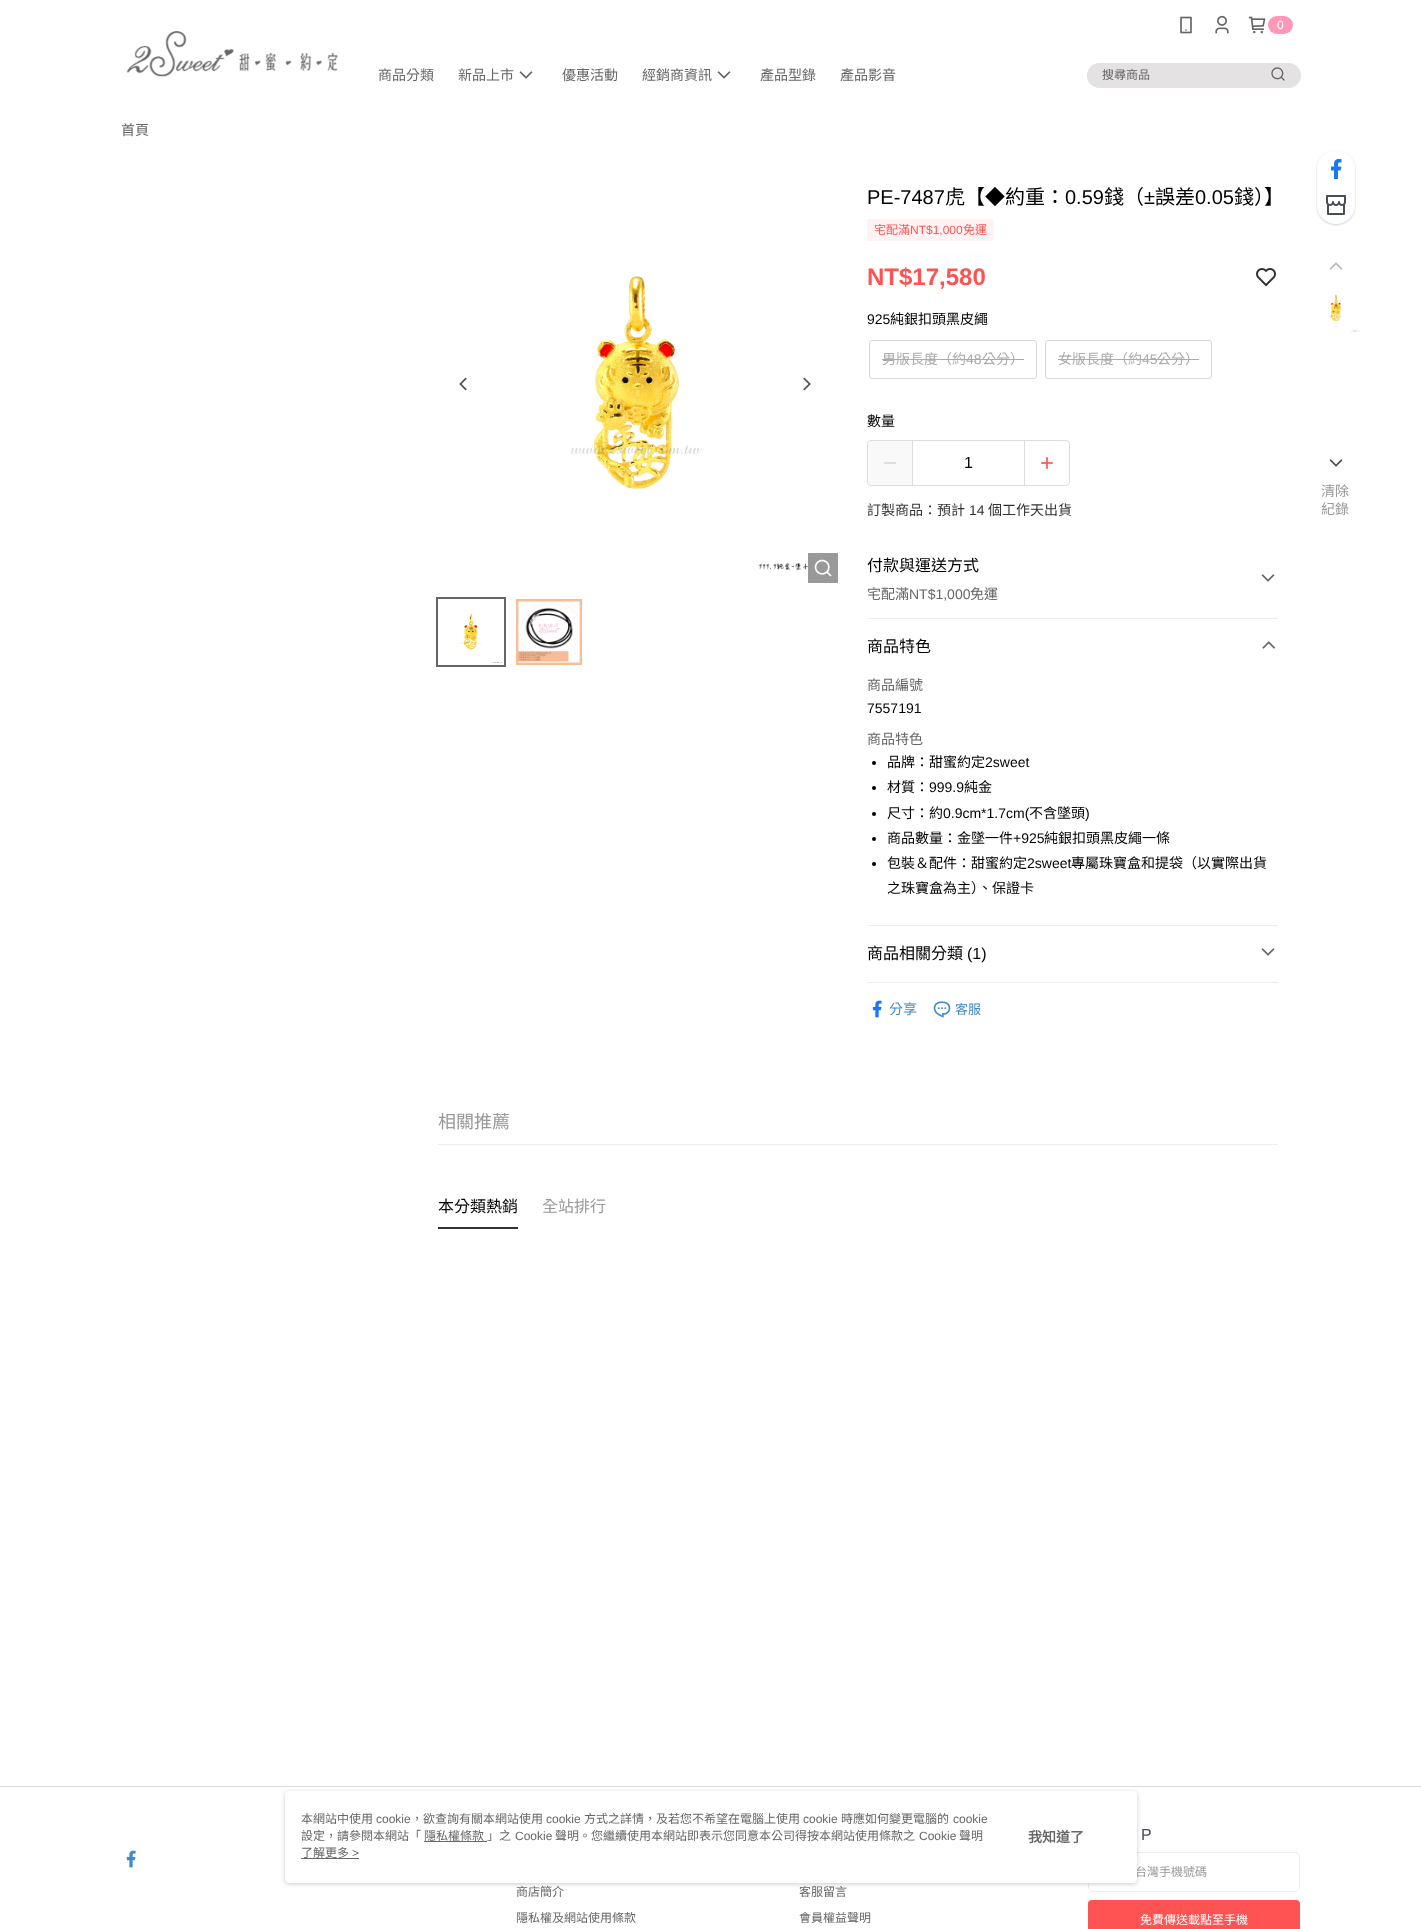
(async () => {
    const canvas = document.querySelector("canvas");
    canvas.width = 1421;
    canvas.height = 1929;
    const context = canvas.getContext("2d");
    context.miterLimit = 4;
    context.fontKerning = "normal";
    function write(s, x, y, font, color) {
        context.font = font;
        context.fillStyle = color;
        context.fillText(s, x, y);
    }
    function block(x, y, w, h, color) {
        context.fillStyle = color;
        context.fillRect(x, y, w, h);
    }
    function card(x, y, w, h, r, color) {
        context.fillStyle = color;
        context.beginPath();
        context.roundRect(x, y, w, h, r);
        context.fill();
    }
    async function photo(src, x, y, w, h) {
        const img = new Image();
        img.src = src;
        await img.decode();
        context.drawImage(img, x, y, w, h);
    }

    block(0, 0, 1421, 1929, "rgb(255, 255, 255)");
    await photo("media/1.png", 126, 31, 212, 46);
    await photo("media/2.png", 1180, 16, 12, 18);
    await photo("media/3.png", 1215, 15, 14, 19);
    await photo("media/4.png", 1248, 16, 18, 18);
    card(1268, 16, 25, 18, 9, "rgb(255, 152, 183)");
    write("0", 1277, 29, "12px Liberation Sans", "rgb(255, 255, 255)");
    write("商品分類", 378, 80, "14px Noto Sans CJK TC", "rgb(102, 102, 102)");
    write("新品上市", 458, 80, "14px Noto Sans CJK TC", "rgb(102, 102, 102)");
    await photo("media/5.png", 519, 71, 14, 8);
    write("優惠活動", 562, 80, "14px Noto Sans CJK TC", "rgb(102, 102, 102)");
    write("經銷商資訊", 642, 80, "14px Noto Sans CJK TC", "rgb(102, 102, 102)");
    await photo("media/5.png", 717, 71, 14, 8);
    write("產品型錄", 760, 80, "14px Noto Sans CJK TC", "rgb(102, 102, 102)");
    write("產品影音", 840, 80, "14px Noto Sans CJK TC", "rgb(102, 102, 102)");
    card(1087, 63, 214, 25, 12.5, "rgb(228, 226, 226)");
    write("搜尋商品", 1102, 79, "12px Noto Sans CJK TC", "rgb(102, 102, 102)");
    await photo("media/6.png", 1271, 67, 14, 14);
    write("首頁", 121, 135, "14px Noto Sans CJK TC", "rgb(102, 102, 102)");
    await photo("media/7.png", 459, 377, 8, 14);
    await photo("media/8.png", 571, 276, 256, 295);
    block(808, 553, 30, 30, "rgb(153, 153, 153)");
    await photo("media/9.png", 814, 559, 18, 18);
    await photo("media/10.png", 803, 377, 8, 14);
    await photo("media/11.png", 460, 614, 43, 49);
    context.strokeStyle = "rgb(102, 102, 102)";
    context.lineWidth = 2;
    context.strokeRect(437, 598, 68, 68);
    await photo("media/12.png", 516, 599, 66, 66);
    write("PE-7487", 867, 204, "20px Liberation Sans", "rgb(0, 0, 0)");
    write("虎【◆約重：", 945, 204, "20px Noto Sans CJK TC", "rgb(0, 0, 0)");
    write("0.59", 1065, 204, "20px Liberation Sans", "rgb(0, 0, 0)");
    write("錢（", 1104, 204, "20px Noto Sans CJK TC", "rgb(0, 0, 0)");
    write("±", 1144, 204, "20px Liberation Sans", "rgb(0, 0, 0)");
    write("誤差", 1155, 204, "20px Noto Sans CJK TC", "rgb(0, 0, 0)");
    write("0.05", 1195, 204, "20px Liberation Sans", "rgb(0, 0, 0)");
    write("錢）】", 1234, 204, "20px Noto Sans CJK TC", "rgb(0, 0, 0)");
    context.fillStyle = "rgb(255, 242, 242)";
    context.beginPath();
    context.roundRect(867.5, 219.5, 126, 21, 1.5);
    context.fill();
    context.strokeStyle = "rgb(255, 242, 242)";
    context.lineWidth = 1;
    context.stroke();
    write("宅配滿", 874, 234, "12px Noto Sans CJK TC", "rgb(255, 83, 83)");
    write("NT$1,000", 910, 234, "12px Liberation Sans", "rgb(255, 83, 83)");
    write("免運", 963, 234, "12px Noto Sans CJK TC", "rgb(255, 83, 83)");
    write("NT$17,580", 867, 285, "bold 24px Liberation Sans", "rgb(255, 83, 83)");
    await photo("media/13.png", 1256, 268, 20, 19);
    write("925", 867, 324, "14px Liberation Sans", "rgb(0, 0, 0)");
    write("純銀扣頭黑皮繩", 890, 324, "14px Noto Sans CJK TC", "rgb(0, 0, 0)");
    context.beginPath();
    context.roundRect(869.5, 340.5, 167, 38, 2.5);
    context.strokeStyle = "rgb(216, 216, 216)";
    context.stroke();
    write("男版長度（約", 882, 364, "14px Noto Sans CJK TC", "rgb(170, 170, 170)");
    write("48", 966, 364, "14px Liberation Sans", "rgb(170, 170, 170)");
    block(882, 359, 142, 1, "rgb(170, 170, 170)");
    write("公分）", 982, 364, "14px Noto Sans CJK TC", "rgb(170, 170, 170)");
    context.beginPath();
    context.roundRect(1045.5, 340.5, 166, 38, 2.5);
    context.stroke();
    write("女版長度（約", 1058, 364, "14px Noto Sans CJK TC", "rgb(170, 170, 170)");
    write("45", 1142, 364, "14px Liberation Sans", "rgb(170, 170, 170)");
    block(1058, 359, 141, 1, "rgb(170, 170, 170)");
    write("公分）", 1157, 364, "14px Noto Sans CJK TC", "rgb(170, 170, 170)");
    write("數量", 867, 426, "14px Noto Sans CJK TC", "rgb(0, 0, 0)");
    context.beginPath();
    context.roundRect(867.5, 440.5, 202, 45, 3.5);
    context.strokeStyle = "rgb(221, 221, 221)";
    context.stroke();
    block(868, 441, 44, 44, "rgba(241, 241, 241, 0.4)");
    block(884, 462, 12, 2, "rgb(221, 221, 221)");
    block(1024, 441, 1, 44, "rgb(221, 221, 221)");
    block(912, 441, 1, 44, "rgb(221, 221, 221)");
    write("1", 964, 468, "16px Liberation Sans", "rgb(0, 0, 0)");
    await photo("media/14.png", 1041, 457, 12, 12);
    write("訂製商品：預計", 867, 515, "14px Noto Sans CJK TC", "rgb(51, 51, 51)");
    write("14", 969, 515, "14px Liberation Sans", "rgb(51, 51, 51)");
    write("個工作天出貨", 988, 515, "14px Noto Sans CJK TC", "rgb(51, 51, 51)");
    block(867, 618, 411, 1, "rgb(236, 239, 241)");
    write("付款與運送方式", 867, 571, "16px Noto Sans CJK TC", "rgb(0, 0, 0)");
    write("宅配滿", 867, 599, "14px Noto Sans CJK TC", "rgb(102, 102, 102)");
    write("NT$1,000", 909, 599, "14px Liberation Sans", "rgb(102, 102, 102)");
    write("免運", 970, 599, "14px Noto Sans CJK TC", "rgb(102, 102, 102)");
    await photo("media/5.png", 1261, 574, 14, 8);
    block(867, 925, 411, 1, "rgb(236, 239, 241)");
    write("商品特色", 867, 652, "16px Noto Sans CJK TC", "rgb(0, 0, 0)");
    await photo("media/15.png", 1262, 641, 14, 8);
    write("商品編號", 867, 690, "14px Noto Sans CJK TC", "rgb(102, 102, 102)");
    write("7557191", 867, 713, "14px Liberation Sans", "rgb(0, 0, 0)");
    write("商品特色", 867, 744, "14px Noto Sans CJK TC", "rgb(102, 102, 102)");
    context.fillStyle = "rgb(0, 0, 0)";
    context.beginPath();
    context.arc(874, 763, 2, 0, Math.PI * 2);
    context.fill();
    write("品牌：甜蜜約定", 887, 767, "14px Noto Sans CJK TC", "rgb(0, 0, 0)");
    write("2sweet", 985, 767, "14px Liberation Sans", "rgb(0, 0, 0)");
    context.beginPath();
    context.arc(874, 788, 2, 0, Math.PI * 2);
    context.fill();
    write("材質：", 887, 792, "14px Noto Sans CJK TC", "rgb(0, 0, 0)");
    write("999.9", 929, 792, "14px Liberation Sans", "rgb(0, 0, 0)");
    write("純金", 964, 792, "14px Noto Sans CJK TC", "rgb(0, 0, 0)");
    context.beginPath();
    context.arc(874, 814, 2, 0, Math.PI * 2);
    context.fill();
    write("尺寸：約", 887, 818, "14px Noto Sans CJK TC", "rgb(0, 0, 0)");
    write("0.9cm*1.7cm(", 943, 818, "14px Liberation Sans", "rgb(0, 0, 0)");
    write("不含墜頭", 1029, 818, "14px Noto Sans CJK TC", "rgb(0, 0, 0)");
    write(")", 1085, 818, "14px Liberation Sans", "rgb(0, 0, 0)");
    context.beginPath();
    context.arc(874, 839, 2, 0, Math.PI * 2);
    context.fill();
    write("商品數量：金墜一件", 887, 843, "14px Noto Sans CJK TC", "rgb(0, 0, 0)");
    write("+925", 1013, 843, "14px Liberation Sans", "rgb(0, 0, 0)");
    write("純銀扣頭黑皮繩一條", 1044, 843, "14px Noto Sans CJK TC", "rgb(0, 0, 0)");
    context.beginPath();
    context.arc(874, 864, 2, 0, Math.PI * 2);
    context.fill();
    write("包裝＆配件：甜蜜約定", 887, 868, "14px Noto Sans CJK TC", "rgb(0, 0, 0)");
    write("2sweet", 1027, 868, "14px Liberation Sans", "rgb(0, 0, 0)");
    write("專屬珠寶盒和提袋（以實際出貨", 1071, 868, "14px Noto Sans CJK TC", "rgb(0, 0, 0)");
    write("之珠寶盒為主）、保證卡", 887, 893, "14px Noto Sans CJK TC", "rgb(0, 0, 0)");
    block(867, 982, 411, 1, "rgb(236, 239, 241)");
    write("商品相關分類", 867, 959, "16px Noto Sans CJK TC", "rgb(0, 0, 0)");
    write("(1)", 967, 959, "16px Liberation Sans", "rgb(0, 0, 0)");
    await photo("media/5.png", 1261, 948, 14, 8);
    await photo("media/16.png", 872, 1000, 10, 18);
    write("分享", 889, 1014, "14px Noto Sans CJK TC", "rgb(66, 139, 202)");
    await photo("media/17.png", 933, 1001, 18, 17);
    write("客服", 955, 1014, "13px Noto Sans CJK TC", "rgb(66, 139, 202)");
    block(438, 1144, 840, 1, "rgb(236, 236, 236)");
    write("相關推薦", 438, 1128, "18px Noto Sans CJK TC", "rgb(153, 153, 153)");
    block(438, 1227, 80, 2, "rgb(51, 51, 51)");
    write("本分類熱銷", 438, 1212, "16px Noto Sans CJK TC", "rgb(0, 0, 0)");
    write("全站排行", 542, 1212, "16px Noto Sans CJK TC", "rgb(153, 153, 153)");
    context.save();
    context.beginPath();
    context.moveTo(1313, 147);
    context.lineTo(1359, 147);
    context.lineTo(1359, 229);
    context.lineTo(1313, 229);
    context.closePath();
    context.moveTo(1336, 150);
    context.bezierCurveTo(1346.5, 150, 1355, 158.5, 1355, 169);
    context.lineTo(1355, 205);
    context.bezierCurveTo(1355, 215.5, 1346.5, 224, 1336, 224);
    context.bezierCurveTo(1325.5, 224, 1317, 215.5, 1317, 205);
    context.lineTo(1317, 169);
    context.bezierCurveTo(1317, 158.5, 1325.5, 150, 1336, 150);
    context.closePath();
    context.clip("evenodd");
    context.fillStyle = "rgba(0, 0, 0, 0.2)";
    context.filter = "blur(1px)";
    context.beginPath();
    context.roundRect(1317, 151, 38, 74, 19);
    context.fill();
    context.filter = "none";
    context.restore();
    context.fillStyle = "rgba(255, 255, 255, 0.9)";
    context.beginPath();
    context.roundRect(1317.5, 150.5, 37, 73, 18.5);
    context.fill();
    context.strokeStyle = "rgb(253, 253, 253)";
    context.stroke();
    await photo("media/18.png", 1331, 159, 11, 20);
    await photo("media/19.png", 1326, 195, 20, 20);
    await photo("media/20.png", 1329, 262, 14, 8);
    await photo("media/21.png", 1328, 294, 32, 38);
    await photo("media/22.png", 1329, 459, 14, 8);
    write("清除", 1321, 496, "14px Noto Sans CJK TC", "rgb(153, 153, 153)");
    write("紀錄", 1321, 514, "14px Noto Sans CJK TC", "rgb(153, 153, 153)");
    block(0, 1786, 1421, 1, "rgb(218, 218, 218)");
    await photo("media/23.png", 126, 1850, 10, 18);
    write("P", 1141, 1840, "16px Liberation Sans", "rgb(74, 78, 92)");
    context.beginPath();
    context.roundRect(1088.5, 1852.5, 211, 39, 4.5);
    context.strokeStyle = "rgb(237, 237, 237)";
    context.stroke();
    write("台灣手機號碼", 1135, 1876, "12px Noto Sans CJK TC", "rgb(153, 153, 153)");
    card(1088, 1900, 212, 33, 4, "rgb(255, 83, 83)");
    write("免費傳送載點至手機", 1140, 1924, "12px Noto Sans CJK TC", "rgb(255, 255, 255)");
    write("商店簡介", 516, 1896, "12px Noto Sans CJK TC", "rgb(102, 102, 102)");
    write("隱私權及網站使用條款", 516, 1922, "12px Noto Sans CJK TC", "rgb(102, 102, 102)");
    write("客服留言", 799, 1896, "12px Noto Sans CJK TC", "rgb(102, 102, 102)");
    write("會員權益聲明", 799, 1922, "12px Noto Sans CJK TC", "rgb(102, 102, 102)");
    context.fillStyle = "rgba(151, 151, 151, 0.5)";
    context.filter = "blur(2px)";
    context.beginPath();
    context.roundRect(285, 1792, 852, 92, 4);
    context.fill();
    context.filter = "none";
    card(285, 1791, 852, 92, 4, "rgb(255, 255, 255)");
    write("本網站中使用", 301, 1823, "12px Noto Sans CJK TC", "rgb(102, 102, 102)");
    write("cookie", 376, 1823, "12px Liberation Sans", "rgb(102, 102, 102)");
    write("，欲查詢有關本網站使用", 411, 1823, "12px Noto Sans CJK TC", "rgb(102, 102, 102)");
    write("cookie", 546, 1823, "12px Liberation Sans", "rgb(102, 102, 102)");
    write("方式之詳情，及若您不希望在電腦上使用", 584, 1823, "12px Noto Sans CJK TC", "rgb(102, 102, 102)");
    write("cookie", 803, 1823, "12px Liberation Sans", "rgb(102, 102, 102)");
    write("時應如何變更電腦的", 841, 1823, "12px Noto Sans CJK TC", "rgb(102, 102, 102)");
    write("cookie", 953, 1823, "12px Liberation Sans", "rgb(102, 102, 102)");
    write("設定，請參閱本網站「", 301, 1840, "12px Noto Sans CJK TC", "rgb(102, 102, 102)");
    write("隱私權條款", 424, 1840, "12px Noto Sans CJK TC", "rgb(102, 102, 102)");
    block(424, 1841, 63, 1, "rgb(102, 102, 102)");
    write("」之", 487, 1840, "12px Noto Sans CJK TC", "rgb(102, 102, 102)");
    write("Cookie", 515, 1840, "12px Liberation Sans", "rgb(102, 102, 102)");
    write("聲明。您繼續使用本網站即表示您同意本公司得按本網站使用條款之", 555, 1840, "12px Noto Sans CJK TC", "rgb(102, 102, 102)");
    write("Cookie", 919, 1840, "12px Liberation Sans", "rgb(102, 102, 102)");
    write("聲明", 959, 1840, "12px Noto Sans CJK TC", "rgb(102, 102, 102)");
    write("了解更多", 301, 1857, "12px Noto Sans CJK TC", "rgb(102, 102, 102)");
    write(">", 352, 1857, "12px Liberation Sans", "rgb(102, 102, 102)");
    block(301, 1858, 58, 1, "rgb(102, 102, 102)");
    write("我知道了", 1028, 1842, "bold 14px Noto Sans CJK TC", "rgb(102, 102, 102)");
})();
